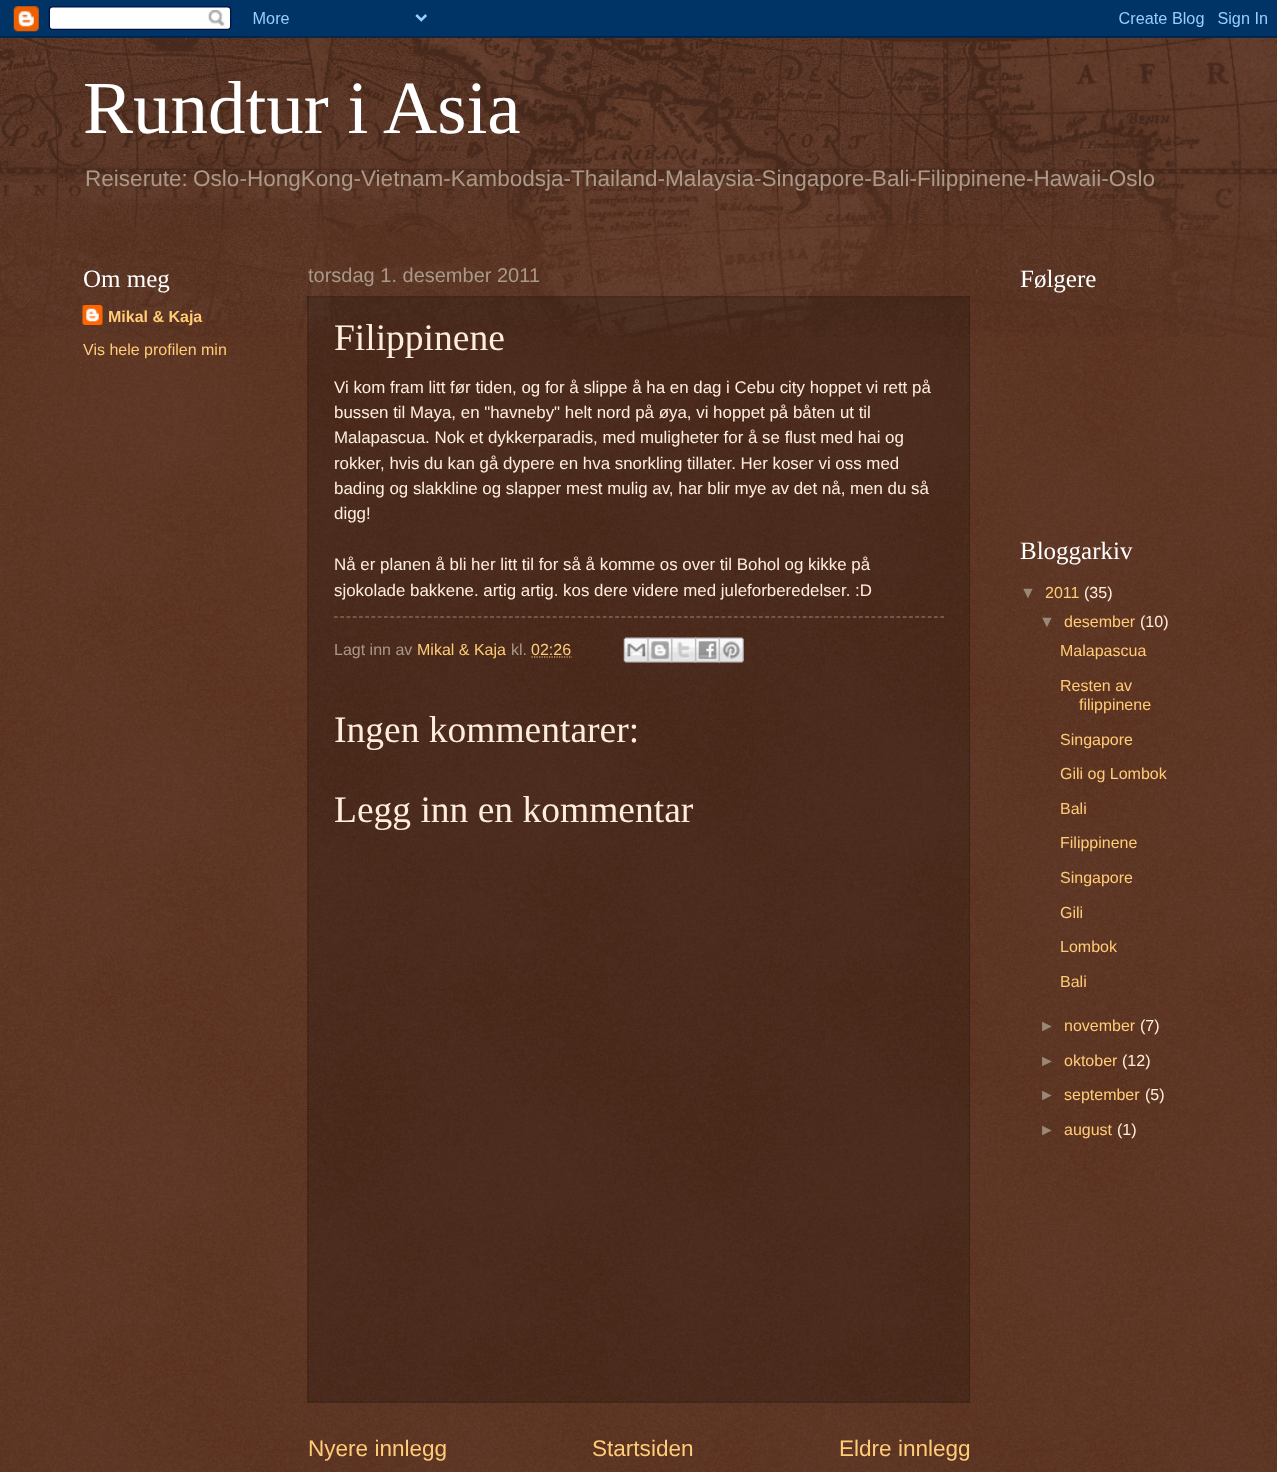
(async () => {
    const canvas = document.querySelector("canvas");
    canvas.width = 1277;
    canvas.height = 1472;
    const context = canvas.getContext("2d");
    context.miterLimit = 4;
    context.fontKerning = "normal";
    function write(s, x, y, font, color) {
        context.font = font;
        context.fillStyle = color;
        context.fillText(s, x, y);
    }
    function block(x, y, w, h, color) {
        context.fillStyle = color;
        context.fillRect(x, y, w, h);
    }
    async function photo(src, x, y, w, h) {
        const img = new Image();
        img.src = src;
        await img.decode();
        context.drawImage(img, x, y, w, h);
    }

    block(0, 0, 1277, 1472, "rgb(68, 21, 0)");
    await photo("media/1.png", 0, 36, 1277, 1436);
    await photo("media/2.png", 0, 0, 1277, 38);
    await photo("media/3.png", 0, 38, 1277, 299);
    write("Rundtur i Asia", 83, 133, "75px Liberation Serif", "rgb(255, 255, 255)");
    context.wordSpacing = "-1px";
    write("Reiserute: Oslo-HongKong-Vietnam-Kambodsja-Thailand-Malaysia-Singapore-Bali-Filippinene-Hawaii-Oslo", 85, 186, "22.55px Liberation Sans", "rgb(170, 153, 136)");
    context.wordSpacing = "0px";
    write("Om meg", 83, 287, "25px Liberation Serif", "rgb(255, 255, 255)");
    await photo("media/4.png", 82, 305, 21, 20);
    write("Mikal & Kaja", 108, 322, "bold 16px Liberation Sans", "rgb(255, 204, 119)");
    write("Vis hele profilen min", 83, 355, "16px Liberation Sans", "rgb(255, 204, 119)");
    write("torsdag 1. desember 2011", 308, 282, "20px Liberation Sans", "rgb(170, 153, 136)");
    block(307, 296, 663, 1107, "rgba(0, 0, 0, 0.2)");
    context.beginPath();
    context.moveTo(307.5, 297);
    context.lineTo(970, 297);
    context.strokeStyle = "rgb(51, 34, 17)";
    context.lineWidth = 1.2;
    context.setLineDash([1.25, 1.25]);
    context.stroke();
    context.beginPath();
    context.moveTo(969.5, 296);
    context.lineTo(969.5, 1402.5);
    context.stroke();
    context.beginPath();
    context.moveTo(307.5, 1402);
    context.lineTo(970, 1402);
    context.stroke();
    context.beginPath();
    context.moveTo(308, 296);
    context.lineTo(308, 1402.5);
    context.stroke();
    write("Filippinene", 334, 350, "37.5px Liberation Serif", "rgb(255, 238, 221)");
    write("Vi kom fram litt før tiden, og for å slippe å ha en dag i Cebu city hoppet vi rett på", 334, 393, "16.9px Liberation Sans", "rgb(255, 238, 221)");
    write("bussen til Maya, en \"havneby\" helt nord på øya, vi hoppet på båten ut til", 334, 418, "16.9px Liberation Sans", "rgb(255, 238, 221)");
    write("Malapascua. Nok et dykkerparadis, med muligheter for å se flust med hai og", 334, 443, "16.9px Liberation Sans", "rgb(255, 238, 221)");
    write("rokker, hvis du kan gå dypere en hva snorkling tillater. Her koser vi oss med", 334, 469, "16.9px Liberation Sans", "rgb(255, 238, 221)");
    write("bading og slakkline og slapper mest mulig av, har blir mye av det nå, men du så", 334, 494, "16.9px Liberation Sans", "rgb(255, 238, 221)");
    write("digg!", 334, 519, "16.9px Liberation Sans", "rgb(255, 238, 221)");
    write("Nå er planen å bli her litt til for så å komme os over til Bohol og kikke på", 334, 570, "16.9px Liberation Sans", "rgb(255, 238, 221)");
    write("sjokolade bakkene. artig artig. kos dere videre med juleforberedelser. :D", 334, 596, "16.9px Liberation Sans", "rgb(255, 238, 221)");
    context.beginPath();
    context.moveTo(334, 617);
    context.lineTo(944, 617);
    context.strokeStyle = "rgb(153, 136, 119)";
    context.setLineDash([3.75, 2.5]);
    context.stroke();
    write("Lagt inn av", 334, 655, "16px Liberation Sans", "rgb(170, 153, 136)");
    write("Mikal & Kaja", 417, 655, "16px Liberation Sans", "rgb(255, 204, 119)");
    write("kl.", 511, 655, "16px Liberation Sans", "rgb(170, 153, 136)");
    write("02:26", 531, 655, "16px Liberation Sans", "rgb(255, 204, 119)");
    context.beginPath();
    context.moveTo(531.5, 657);
    context.lineTo(572, 657);
    context.strokeStyle = "rgb(255, 204, 119)";
    context.setLineDash([1.25, 1.25]);
    context.stroke();
    await photo("media/5.png", 623, 637, 26, 26);
    await photo("media/6.png", 647, 637, 26, 26);
    await photo("media/7.png", 671, 637, 26, 26);
    await photo("media/8.png", 695, 637, 25, 26);
    await photo("media/9.png", 718, 637, 26, 26);
    write("Ingen kommentarer:", 334, 742, "37.5px Liberation Serif", "rgb(255, 238, 221)");
    write("Legg inn en kommentar", 334, 822, "37.5px Liberation Serif", "rgb(255, 238, 221)");
    write("Nyere innlegg", 308, 1456, "22.55px Liberation Sans", "rgb(255, 204, 119)");
    write("Startsiden", 592, 1456, "22.55px Liberation Sans", "rgb(255, 204, 119)");
    write("Eldre innlegg", 839, 1456, "22.55px Liberation Sans", "rgb(255, 204, 119)");
    write("Følgere", 1020, 287, "25px Liberation Serif", "rgb(255, 255, 255)");
    write("Bloggarkiv", 1020, 559, "25px Liberation Serif", "rgb(255, 255, 255)");
    write("▼", 1020, 598, "16px Liberation Sans", "rgb(153, 136, 119)");
    write("2011", 1045, 598, "16px Liberation Sans", "rgb(255, 204, 119)");
    write("(35)", 1084, 598, "16px Liberation Sans", "rgb(255, 238, 221)");
    write("▼", 1039, 627, "16px Liberation Sans", "rgb(153, 136, 119)");
    write("desember", 1064, 627, "16px Liberation Sans", "rgb(255, 204, 119)");
    write("(10)", 1140, 627, "16px Liberation Sans", "rgb(255, 238, 221)");
    write("Malapascua", 1060, 656, "16px Liberation Sans", "rgb(255, 204, 119)");
    write("Resten av", 1060, 691, "16px Liberation Sans", "rgb(255, 204, 119)");
    write("filippinene", 1079, 710, "16px Liberation Sans", "rgb(255, 204, 119)");
    write("Singapore", 1060, 745, "16px Liberation Sans", "rgb(255, 204, 119)");
    write("Gili og Lombok", 1060, 779, "16px Liberation Sans", "rgb(255, 204, 119)");
    write("Bali", 1060, 814, "16px Liberation Sans", "rgb(255, 204, 119)");
    write("Filippinene", 1060, 848, "16px Liberation Sans", "rgb(255, 204, 119)");
    write("Singapore", 1060, 883, "16px Liberation Sans", "rgb(255, 204, 119)");
    write("Gili", 1060, 918, "16px Liberation Sans", "rgb(255, 204, 119)");
    write("Lombok", 1060, 952, "16px Liberation Sans", "rgb(255, 204, 119)");
    write("Bali", 1060, 987, "16px Liberation Sans", "rgb(255, 204, 119)");
    write("►", 1039, 1031, "16px Liberation Sans", "rgb(153, 136, 119)");
    write("november", 1064, 1031, "16px Liberation Sans", "rgb(255, 204, 119)");
    write("(7)", 1140, 1031, "16px Liberation Sans", "rgb(255, 238, 221)");
    write("►", 1039, 1066, "16px Liberation Sans", "rgb(153, 136, 119)");
    write("oktober", 1064, 1066, "16px Liberation Sans", "rgb(255, 204, 119)");
    write("(12)", 1122, 1066, "16px Liberation Sans", "rgb(255, 238, 221)");
    write("►", 1039, 1100, "16px Liberation Sans", "rgb(153, 136, 119)");
    write("september", 1064, 1100, "16px Liberation Sans", "rgb(255, 204, 119)");
    write("(5)", 1145, 1100, "16px Liberation Sans", "rgb(255, 238, 221)");
    write("►", 1039, 1135, "16px Liberation Sans", "rgb(153, 136, 119)");
    write("august", 1064, 1135, "16px Liberation Sans", "rgb(255, 204, 119)");
    write("(1)", 1117, 1135, "16px Liberation Sans", "rgb(255, 238, 221)");
})();
